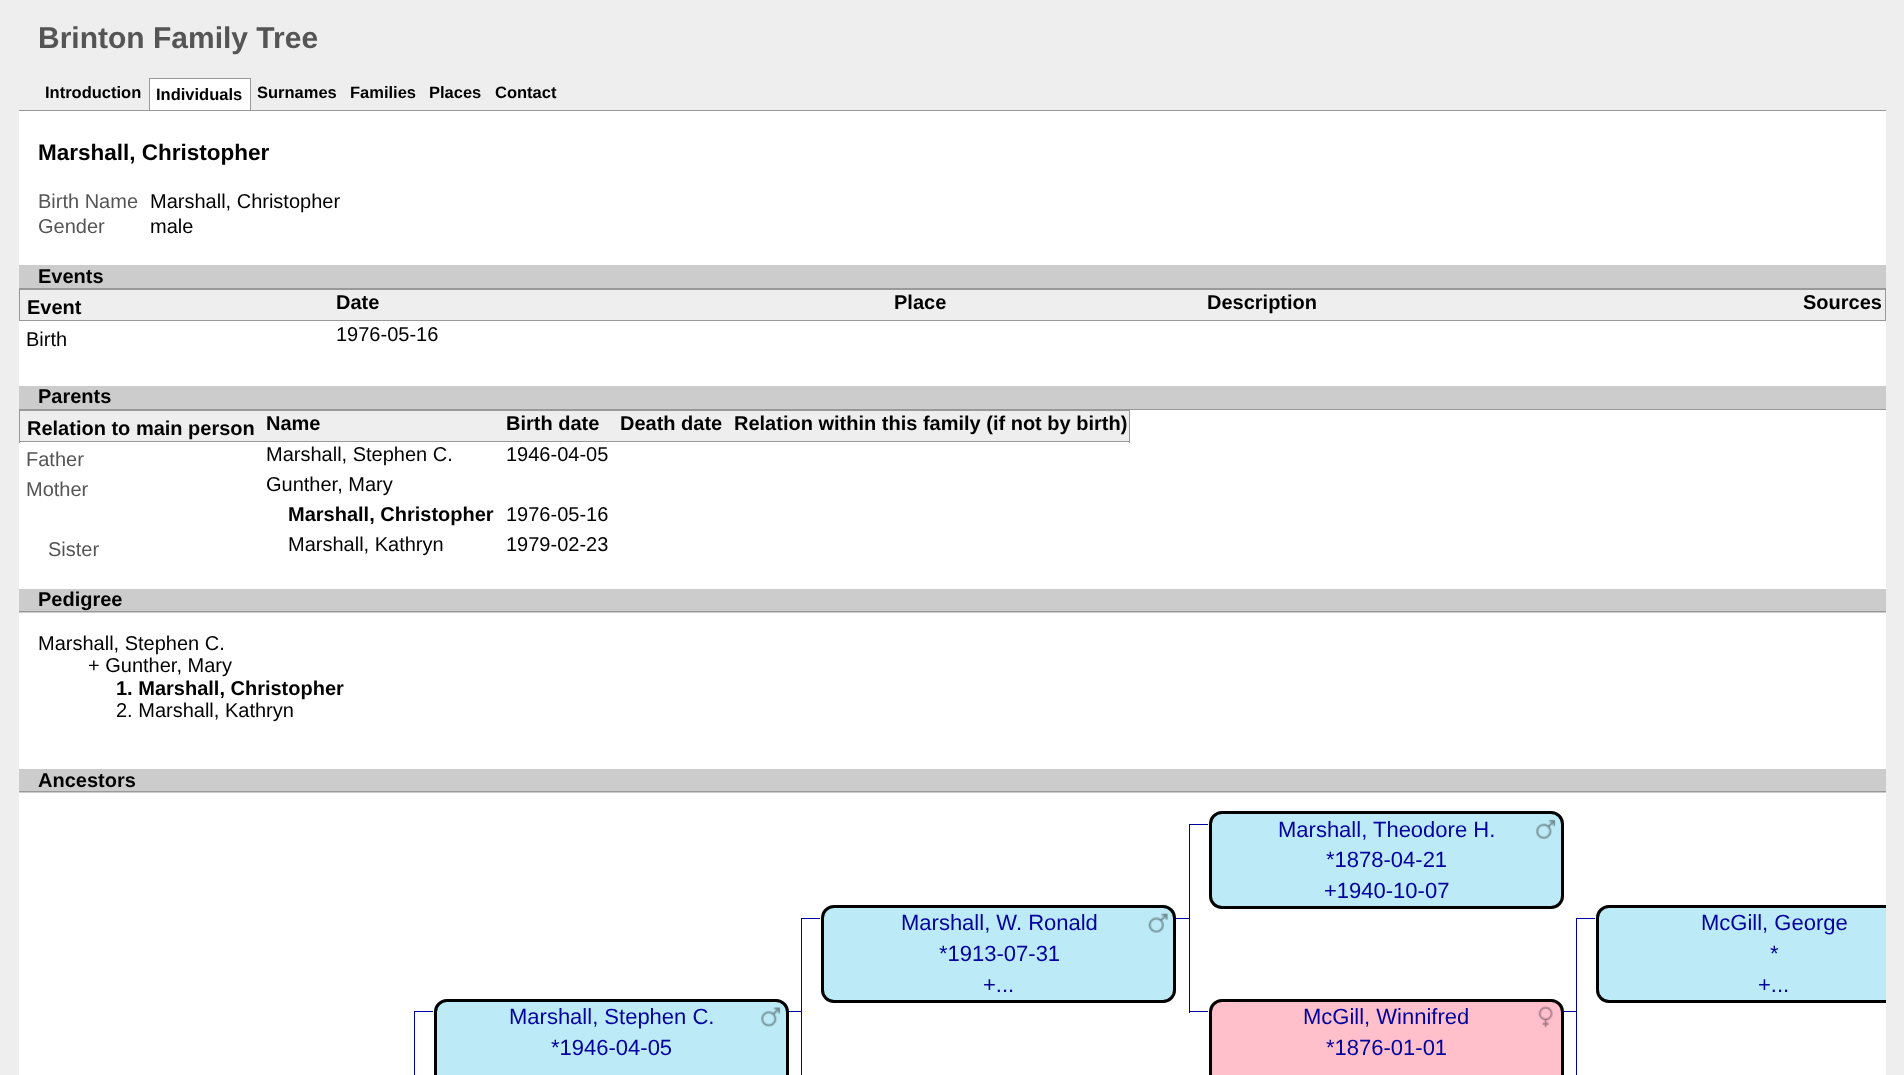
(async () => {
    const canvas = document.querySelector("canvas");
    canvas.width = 1904;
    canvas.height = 1075;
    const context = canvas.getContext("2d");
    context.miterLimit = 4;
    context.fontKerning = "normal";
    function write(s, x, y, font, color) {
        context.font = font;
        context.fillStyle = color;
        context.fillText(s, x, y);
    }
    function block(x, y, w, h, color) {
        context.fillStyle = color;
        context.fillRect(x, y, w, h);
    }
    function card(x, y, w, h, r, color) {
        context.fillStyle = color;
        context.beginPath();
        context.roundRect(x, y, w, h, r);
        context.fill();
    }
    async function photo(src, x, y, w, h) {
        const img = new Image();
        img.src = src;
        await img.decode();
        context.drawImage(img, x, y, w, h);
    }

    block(0, 0, 1904, 1075, "rgb(238, 238, 238)");
    write("Brinton Family Tree", 38, 48, "bold 30px Liberation Sans", "rgb(85, 85, 85)");
    write("Introduction", 45, 98, "bold 16.5px Liberation Sans", "rgb(0, 0, 0)");
    block(150, 79, 100, 31, "rgb(255, 255, 255)");
    block(149, 78, 102, 1, "rgb(153, 153, 153)");
    block(250, 78, 1, 32, "rgb(153, 153, 153)");
    block(149, 78, 1, 32, "rgb(153, 153, 153)");
    write("Individuals", 156, 100, "bold 16.5px Liberation Sans", "rgb(0, 0, 0)");
    write("Surnames", 257, 98, "bold 16.5px Liberation Sans", "rgb(0, 0, 0)");
    write("Families", 350, 98, "bold 16.5px Liberation Sans", "rgb(0, 0, 0)");
    write("Places", 429, 98, "bold 16.5px Liberation Sans", "rgb(0, 0, 0)");
    write("Contact", 495, 98, "bold 16.5px Liberation Sans", "rgb(0, 0, 0)");
    block(19, 111, 1867, 964, "rgb(255, 255, 255)");
    block(19, 110, 1867, 1, "rgb(153, 153, 153)");
    write("Marshall, Christopher", 38, 160, "bold 22.5px Liberation Sans", "rgb(0, 0, 0)");
    write("Birth Name", 38, 208, "20px Liberation Sans", "rgb(85, 85, 85)");
    write("Marshall, Christopher", 150, 208, "20px Liberation Sans", "rgb(0, 0, 0)");
    write("Gender", 38, 233, "20px Liberation Sans", "rgb(85, 85, 85)");
    write("male", 150, 233, "20px Liberation Sans", "rgb(0, 0, 0)");
    block(19, 265, 1867, 23, "rgb(204, 204, 204)");
    block(19, 288, 1867, 1, "rgb(153, 153, 153)");
    write("Events", 38, 283, "bold 20px Liberation Sans", "rgb(0, 0, 0)");
    block(20, 290, 1865, 30, "rgb(238, 238, 238)");
    block(19, 289, 1867, 1, "rgb(153, 153, 153)");
    block(1885, 289, 1, 32, "rgb(153, 153, 153)");
    block(19, 320, 1867, 1, "rgb(153, 153, 153)");
    block(19, 289, 1, 32, "rgb(153, 153, 153)");
    write("Event", 27, 314, "bold 20px Liberation Sans", "rgb(0, 0, 0)");
    write("Date", 336, 309, "bold 20px Liberation Sans", "rgb(0, 0, 0)");
    write("Place", 894, 309, "bold 20px Liberation Sans", "rgb(0, 0, 0)");
    write("Description", 1207, 309, "bold 20px Liberation Sans", "rgb(0, 0, 0)");
    write("Sources", 1803, 309, "bold 20px Liberation Sans", "rgb(0, 0, 0)");
    write("Birth", 26, 346, "20px Liberation Sans", "rgb(0, 0, 0)");
    write("1976-05-16", 336, 341, "20px Liberation Sans", "rgb(0, 0, 0)");
    block(19, 386, 1867, 23, "rgb(204, 204, 204)");
    block(19, 409, 1867, 1, "rgb(153, 153, 153)");
    write("Parents", 38, 403, "bold 20px Liberation Sans", "rgb(0, 0, 0)");
    block(20, 411, 1109, 30, "rgb(238, 238, 238)");
    block(19, 410, 1111, 1, "rgb(153, 153, 153)");
    block(1129, 410, 1, 33, "rgb(153, 153, 153)");
    block(19, 441, 1111, 1, "rgb(153, 153, 153)");
    block(19, 410, 1, 33, "rgb(153, 153, 153)");
    write("Relation to main person", 27, 435, "bold 20px Liberation Sans", "rgb(0, 0, 0)");
    write("Name", 266, 430, "bold 20px Liberation Sans", "rgb(0, 0, 0)");
    write("Birth date", 506, 430, "bold 20px Liberation Sans", "rgb(0, 0, 0)");
    write("Death date", 620, 430, "bold 20px Liberation Sans", "rgb(0, 0, 0)");
    write("Relation within this family (if not by birth)", 734, 430, "bold 20px Liberation Sans", "rgb(0, 0, 0)");
    write("Father", 26, 466, "20px Liberation Sans", "rgb(85, 85, 85)");
    write("Marshall, Stephen C.", 266, 461, "20px Liberation Sans", "rgb(0, 0, 0)");
    write("1946-04-05", 506, 461, "20px Liberation Sans", "rgb(0, 0, 0)");
    write("Mother", 26, 496, "20px Liberation Sans", "rgb(85, 85, 85)");
    write("Gunther, Mary", 266, 491, "20px Liberation Sans", "rgb(0, 0, 0)");
    write("Marshall, Christopher", 288, 521, "bold 20px Liberation Sans", "rgb(0, 0, 0)");
    write("1976-05-16", 506, 521, "20px Liberation Sans", "rgb(0, 0, 0)");
    write("Sister", 48, 556, "20px Liberation Sans", "rgb(85, 85, 85)");
    write("Marshall, Kathryn", 288, 551, "20px Liberation Sans", "rgb(0, 0, 0)");
    write("1979-02-23", 506, 551, "20px Liberation Sans", "rgb(0, 0, 0)");
    block(19, 589, 1867, 24, "rgb(204, 204, 204)");
    block(19, 611, 1867, 1, "rgb(153, 153, 153)");
    write("Pedigree", 38, 606, "bold 20px Liberation Sans", "rgb(0, 0, 0)");
    write("Marshall, Stephen C.", 38, 650, "20px Liberation Sans", "rgb(0, 0, 0)");
    write("+ Gunther, Mary", 88, 672, "20px Liberation Sans", "rgb(0, 0, 0)");
    write("1. Marshall, Christopher", 116, 695, "bold 20px Liberation Sans", "rgb(0, 0, 0)");
    write("2. Marshall, Kathryn", 116, 717, "20px Liberation Sans", "rgb(0, 0, 0)");
    block(19, 769, 1867, 24, "rgb(204, 204, 204)");
    block(19, 791, 1867, 1, "rgb(153, 153, 153)");
    write("Ancestors", 38, 787, "bold 20px Liberation Sans", "rgb(0, 0, 0)");
    block(1189, 824, 19, 1, "rgb(0, 2, 157)");
    card(1209, 811, 355, 98, 13, "rgb(188, 234, 246)");
    await photo("media/1.png", 1536, 819, 20, 20);
    context.beginPath();
    context.roundRect(1210.5, 812.5, 352, 95, 11.5);
    context.strokeStyle = "rgb(0, 0, 0)";
    context.lineWidth = 3;
    context.stroke();
    write("Marshall, Theodore H.", 1278, 837, "22px Liberation Sans", "rgb(0, 2, 157)");
    write("*1878-04-21", 1326, 867, "22px Liberation Sans", "rgb(0, 2, 157)");
    write("+1940-10-07", 1324, 898, "22px Liberation Sans", "rgb(0, 2, 157)");
    block(1189, 824, 1, 95, "rgb(0, 2, 157)");
    block(801, 918, 19, 1, "rgb(0, 2, 157)");
    block(1170, 918, 19, 1, "rgb(0, 2, 157)");
    card(821, 905, 355, 98, 13, "rgb(188, 234, 246)");
    await photo("media/2.png", 1148, 913, 20, 20);
    context.beginPath();
    context.roundRect(822.5, 906.5, 352, 95, 11.5);
    context.stroke();
    write("Marshall, W. Ronald", 901, 930, "22px Liberation Sans", "rgb(0, 2, 157)");
    write("*1913-07-31", 939, 961, "22px Liberation Sans", "rgb(0, 2, 157)");
    write("+...", 983, 992, "22px Liberation Sans", "rgb(0, 2, 157)");
    context.fillStyle = "rgb(188, 234, 246)";
    context.beginPath();
    context.roundRect(1596, 905, 290, 98, [13, 0, 0, 13]);
    context.fill();
    context.save();
    context.beginPath();
    context.rect(19, 743, 1867, 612);
    context.clip();
    context.beginPath();
    context.roundRect(1597.5, 906.5, 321, 95, 11.5);
    context.stroke();
    context.restore();
    write("McGill, George", 1701, 930, "22px Liberation Sans", "rgb(0, 2, 157)");
    write("*", 1770, 961, "22px Liberation Sans", "rgb(0, 2, 157)");
    write("+...", 1758, 992, "22px Liberation Sans", "rgb(0, 2, 157)");
    block(801, 918, 1, 157, "rgb(0, 2, 157)");
    block(1189, 1011, 19, 1, "rgb(0, 2, 157)");
    block(1189, 918, 1, 95, "rgb(0, 2, 157)");
    block(1576, 918, 19, 1, "rgb(0, 2, 157)");
    block(414, 1011, 19, 1, "rgb(0, 2, 157)");
    block(783, 1011, 18, 1, "rgb(0, 2, 157)");
    card(434, 999, 355, 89, 13, "rgb(188, 234, 246)");
    await photo("media/3.png", 761, 1007, 20, 20);
    context.beginPath();
    context.roundRect(435.5, 1000.5, 352, 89, 11.5);
    context.stroke();
    write("Marshall, Stephen C.", 509, 1024, "22px Liberation Sans", "rgb(0, 2, 157)");
    write("*1946-04-05", 551, 1055, "22px Liberation Sans", "rgb(0, 2, 157)");
    block(1558, 1011, 18, 1, "rgb(0, 2, 157)");
    card(1209, 999, 355, 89, 13, "rgb(255, 192, 203)");
    await photo("media/4.png", 1538, 1006, 15, 22);
    context.beginPath();
    context.roundRect(1210.5, 1000.5, 352, 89, 11.5);
    context.stroke();
    write("McGill, Winnifred", 1303, 1024, "22px Liberation Sans", "rgb(0, 2, 157)");
    write("*1876-01-01", 1326, 1055, "22px Liberation Sans", "rgb(0, 2, 157)");
    block(1576, 918, 1, 157, "rgb(0, 2, 157)");
    block(414, 1011, 1, 64, "rgb(0, 2, 157)");
})();
